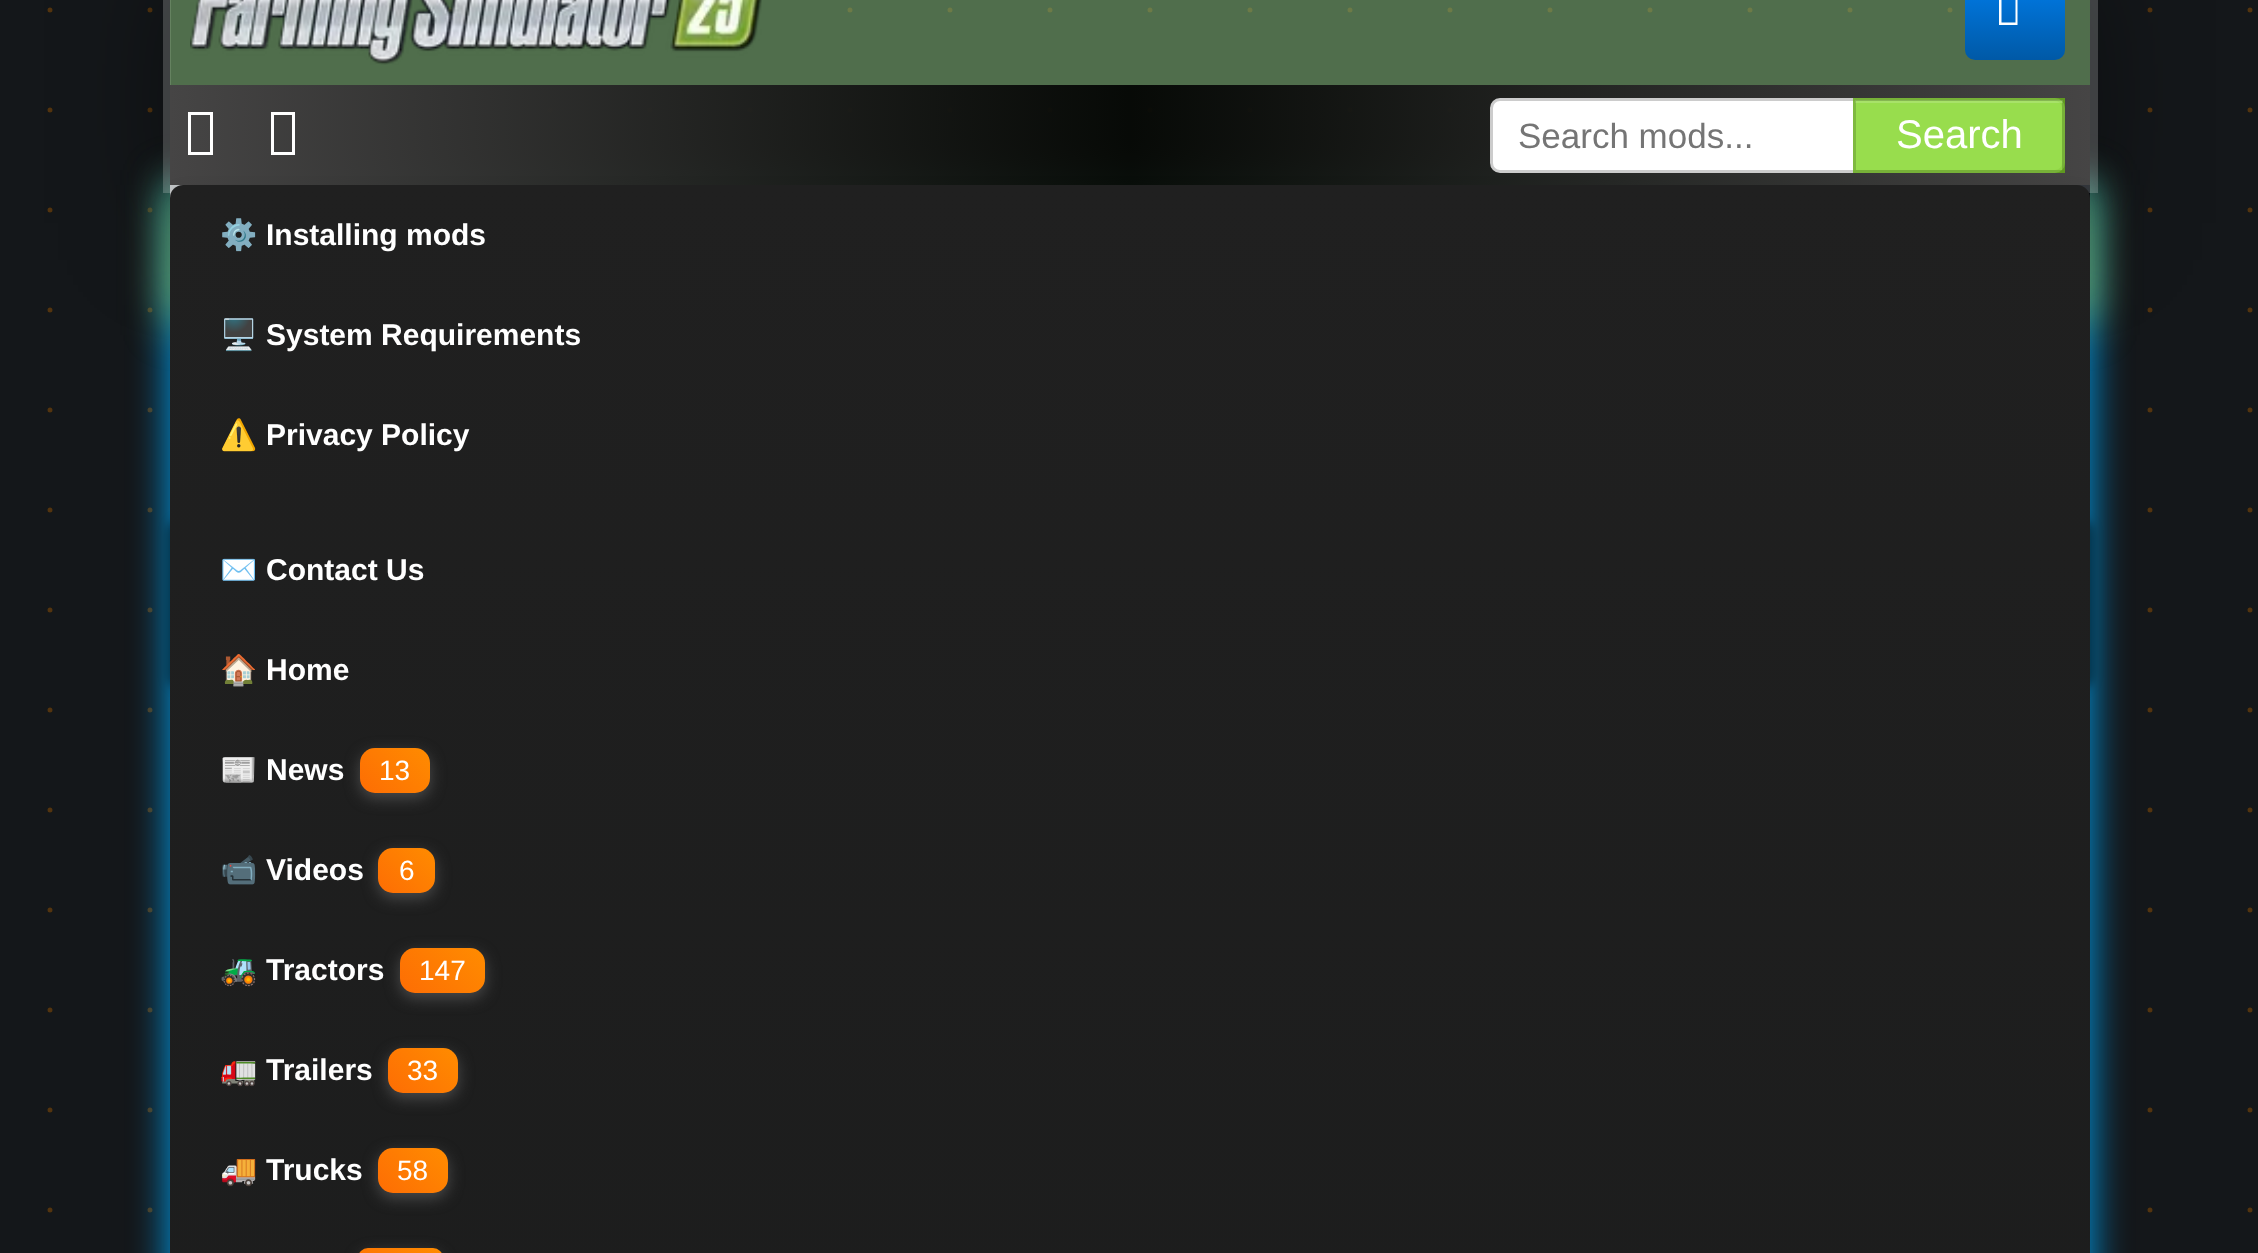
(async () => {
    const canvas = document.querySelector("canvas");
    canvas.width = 2258;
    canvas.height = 1253;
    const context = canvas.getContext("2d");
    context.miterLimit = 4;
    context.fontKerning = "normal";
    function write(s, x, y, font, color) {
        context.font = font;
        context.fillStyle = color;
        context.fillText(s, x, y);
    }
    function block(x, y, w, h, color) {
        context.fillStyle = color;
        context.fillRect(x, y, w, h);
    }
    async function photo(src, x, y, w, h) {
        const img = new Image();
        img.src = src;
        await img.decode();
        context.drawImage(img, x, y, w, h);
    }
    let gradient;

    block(0, 0, 2258, 1253, "rgb(20, 23, 26)");
    context.beginPath();
    context.moveTo(50, 10);
    context.lineTo(2250.5, 10);
    context.strokeStyle = "rgb(14, 23, 19)";
    context.lineWidth = 5;
    context.lineCap = "round";
    context.setLineDash([0, 100]);
    context.stroke();
    context.beginPath();
    context.moveTo(50, 110);
    context.lineTo(2250.5, 110);
    context.stroke();
    context.beginPath();
    context.moveTo(50, 210);
    context.lineTo(2250.5, 210);
    context.stroke();
    context.beginPath();
    context.moveTo(50, 310);
    context.lineTo(2250.5, 310);
    context.stroke();
    context.beginPath();
    context.moveTo(50, 410);
    context.lineTo(2250.5, 410);
    context.stroke();
    context.beginPath();
    context.moveTo(50, 510);
    context.lineTo(2250.5, 510);
    context.stroke();
    context.beginPath();
    context.moveTo(50, 610);
    context.lineTo(2250.5, 610);
    context.stroke();
    context.beginPath();
    context.moveTo(50, 710);
    context.lineTo(2250.5, 710);
    context.stroke();
    context.beginPath();
    context.moveTo(50, 810);
    context.lineTo(2250.5, 810);
    context.stroke();
    context.beginPath();
    context.moveTo(50, 910);
    context.lineTo(2250.5, 910);
    context.stroke();
    context.beginPath();
    context.moveTo(50, 1010);
    context.lineTo(2250.5, 1010);
    context.stroke();
    context.beginPath();
    context.moveTo(50, 1110);
    context.lineTo(2250.5, 1110);
    context.stroke();
    context.beginPath();
    context.moveTo(50, 1210);
    context.lineTo(2250.5, 1210);
    context.stroke();
    context.beginPath();
    context.moveTo(50, 10);
    context.lineTo(2250.5, 10);
    context.strokeStyle = "rgb(84, 52, 15)";
    context.stroke();
    context.beginPath();
    context.moveTo(50, 110);
    context.lineTo(2250.5, 110);
    context.stroke();
    context.beginPath();
    context.moveTo(50, 210);
    context.lineTo(2250.5, 210);
    context.stroke();
    context.beginPath();
    context.moveTo(50, 310);
    context.lineTo(2250.5, 310);
    context.stroke();
    context.beginPath();
    context.moveTo(50, 410);
    context.lineTo(2250.5, 410);
    context.stroke();
    context.beginPath();
    context.moveTo(50, 510);
    context.lineTo(2250.5, 510);
    context.stroke();
    context.beginPath();
    context.moveTo(50, 610);
    context.lineTo(2250.5, 610);
    context.stroke();
    context.beginPath();
    context.moveTo(50, 710);
    context.lineTo(2250.5, 710);
    context.stroke();
    context.beginPath();
    context.moveTo(50, 810);
    context.lineTo(2250.5, 810);
    context.stroke();
    context.beginPath();
    context.moveTo(50, 910);
    context.lineTo(2250.5, 910);
    context.stroke();
    context.beginPath();
    context.moveTo(50, 1010);
    context.lineTo(2250.5, 1010);
    context.stroke();
    context.beginPath();
    context.moveTo(50, 1110);
    context.lineTo(2250.5, 1110);
    context.stroke();
    context.beginPath();
    context.moveTo(50, 1210);
    context.lineTo(2250.5, 1210);
    context.stroke();
    context.fillStyle = "rgb(0, 171, 255)";
    context.filter = "blur(19px)";
    context.beginPath();
    context.rect(170, 185, 1920, 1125);
    context.fill();
    context.filter = "none";
    context.fillStyle = "rgb(138, 189, 87)";
    context.filter = "blur(22.5px)";
    context.beginPath();
    context.rect(170, 185, 1920, 135);
    context.fill();
    context.filter = "none";
    gradient = context.createLinearGradient(257, -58, 2003, 563);
    gradient.addColorStop(0.11, "rgb(214, 219, 221)");
    gradient.addColorStop(0.91, "rgb(0, 6, 13)");
    context.fillStyle = gradient;
    context.fillRect(170, 185, 1920, 13);
    context.fillStyle = "rgba(0, 0, 0, 0.49)";
    context.filter = "blur(5px)";
    context.beginPath();
    context.roundRect(168, 518, 1925, 172, 15);
    context.fill();
    context.filter = "none";
    context.save();
    context.beginPath();
    context.moveTo(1, 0);
    context.lineTo(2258, 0);
    context.lineTo(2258, 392);
    context.lineTo(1, 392);
    context.closePath();
    context.moveTo(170, -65);
    context.lineTo(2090, -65);
    context.lineTo(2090, 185);
    context.lineTo(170, 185);
    context.closePath();
    context.clip("evenodd");
    context.fillStyle = "rgba(0, 0, 0, 0.43)";
    context.filter = "blur(56px)";
    context.beginPath();
    context.rect(170, -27, 1920, 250);
    context.fill();
    context.filter = "none";
    context.restore();
    context.strokeStyle = "rgba(255, 255, 255, 0.2)";
    context.lineWidth = 8;
    context.setLineDash([]);
    context.strokeRect(167, -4, 1927, 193);
    block(170, 0, 1920, 185, "rgba(129, 179, 116, 0.56)");
    gradient = context.createLinearGradient(170, 135, 2090, 135);
    gradient.addColorStop(0, "rgb(70, 69, 69)");
    gradient.addColorStop(0.5, "rgba(0, 0, 0, 0.91)");
    gradient.addColorStop(1, "rgb(70, 69, 69)");
    context.fillStyle = gradient;
    context.fillRect(170, 85, 1920, 100);
    await photo("media/1.png", 190, 0, 572, 65);
    gradient = context.createLinearGradient(2015, -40, 2015, 60);
    gradient.addColorStop(0, "rgb(0, 132, 248)");
    gradient.addColorStop(1, "rgb(0, 89, 166)");
    context.fillStyle = gradient;
    context.beginPath();
    context.roundRect(1965, -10, 100, 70, 10);
    context.fill();
    context.fillStyle = "rgb(255, 255, 255)";
    context.beginPath();
    context.moveTo(1999, 25);
    context.lineTo(1999, -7);
    context.lineTo(2017.5, -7);
    context.lineTo(2017.5, 25);
    context.closePath();
    context.moveTo(2001.5, 22.5);
    context.lineTo(2015.5, 22.5);
    context.lineTo(2015.5, -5);
    context.lineTo(2001.5, -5);
    context.closePath();
    context.fill();
    context.beginPath();
    context.moveTo(188, 155);
    context.lineTo(188, 112);
    context.lineTo(213, 112);
    context.lineTo(213, 155);
    context.closePath();
    context.moveTo(191, 152);
    context.lineTo(210, 152);
    context.lineTo(210, 115);
    context.lineTo(191, 115);
    context.closePath();
    context.fill();
    context.beginPath();
    context.moveTo(271, 155);
    context.lineTo(271, 112);
    context.lineTo(295, 112);
    context.lineTo(295, 155);
    context.closePath();
    context.moveTo(274, 152);
    context.lineTo(292, 152);
    context.lineTo(292, 115);
    context.lineTo(274, 115);
    context.closePath();
    context.fill();
    context.beginPath();
    context.roundRect(1491.5, 99.5, 572, 72, 8.5);
    context.fill();
    context.strokeStyle = "rgb(204, 204, 204)";
    context.lineWidth = 3;
    context.stroke();
    write("Search mods...", 1518, 148, "35px Liberation Sans", "rgb(117, 117, 117)");
    block(1853, 98, 212, 75, "rgba(126, 213, 32, 0.8)");
    block(1855, 100, 208, 3, "rgba(255, 255, 255, 0.16)");
    context.strokeStyle = "rgba(0, 0, 0, 0.16)";
    context.strokeRect(1854.5, 99.5, 209, 72);
    write("Search", 1896, 148, "40px Liberation Sans", "rgb(255, 255, 255)");
    context.fillStyle = "rgba(0, 0, 0, 0.1)";
    context.filter = "blur(10px)";
    context.beginPath();
    context.roundRect(170, 195, 1920, 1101, 13);
    context.fill();
    context.filter = "none";
    gradient = context.createLinearGradient(1130, 185, 1130, 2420);
    gradient.addColorStop(0, "rgb(32, 32, 32)");
    gradient.addColorStop(1, "rgb(25, 26, 26)");
    context.fillStyle = gradient;
    context.beginPath();
    context.roundRect(170, 185, 1920, 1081, 13);
    context.fill();
    write("⚙️", 220, 245, "bold 30px Noto Color Emoji", "rgb(255, 255, 255)");
    write("Installing mods", 266, 245, "bold 30px Liberation Sans", "rgb(255, 255, 255)");
    write("🖥️", 220, 345, "bold 30px Noto Color Emoji", "rgb(255, 255, 255)");
    write("System Requirements", 266, 345, "bold 30px Liberation Sans", "rgb(255, 255, 255)");
    write("⚠️", 220, 445, "bold 30px Noto Color Emoji", "rgb(255, 255, 255)");
    write("Privacy Policy", 266, 445, "bold 30px Liberation Sans", "rgb(255, 255, 255)");
    write("✉️", 220, 580, "bold 30px Noto Color Emoji", "rgb(255, 255, 255)");
    write("Contact Us", 266, 580, "bold 30px Liberation Sans", "rgb(255, 255, 255)");
    write("🏠", 220, 680, "bold 30px Noto Color Emoji", "rgb(255, 255, 255)");
    write("Home", 266, 680, "bold 30px Liberation Sans", "rgb(255, 255, 255)");
    write("📰", 220, 780, "bold 30px Noto Color Emoji", "rgb(255, 255, 255)");
    write("News", 266, 780, "bold 30px Liberation Sans", "rgb(255, 255, 255)");
    context.fillStyle = "rgba(89, 88, 88, 0.78)";
    context.filter = "blur(7.5px)";
    context.beginPath();
    context.roundRect(360, 753, 70, 45, 15);
    context.fill();
    context.filter = "none";
    gradient = context.createLinearGradient(366, 799, 424, 741);
    gradient.addColorStop(0, "rgb(253, 109, 4)");
    gradient.addColorStop(1, "rgb(255, 140, 0)");
    context.fillStyle = gradient;
    context.beginPath();
    context.roundRect(360, 748, 70, 45, 15);
    context.fill();
    write("13", 379, 780, "28px Liberation Sans", "rgb(255, 255, 255)");
    write("📹", 220, 880, "bold 30px Noto Color Emoji", "rgb(255, 255, 255)");
    write("Videos", 266, 880, "bold 30px Liberation Sans", "rgb(255, 255, 255)");
    context.fillStyle = "rgba(89, 88, 88, 0.78)";
    context.filter = "blur(7.5px)";
    context.beginPath();
    context.roundRect(378, 853, 57, 45, 15);
    context.fill();
    context.filter = "none";
    gradient = context.createLinearGradient(381, 896, 432, 844);
    gradient.addColorStop(0, "rgb(253, 109, 4)");
    gradient.addColorStop(1, "rgb(255, 140, 0)");
    context.fillStyle = gradient;
    context.beginPath();
    context.roundRect(378, 848, 57, 45, 15);
    context.fill();
    write("6", 399, 880, "28px Liberation Sans", "rgb(255, 255, 255)");
    write("🚜", 220, 980, "bold 30px Noto Color Emoji", "rgb(255, 255, 255)");
    write("Tractors", 266, 980, "bold 30px Liberation Sans", "rgb(255, 255, 255)");
    context.fillStyle = "rgba(89, 88, 88, 0.78)";
    context.filter = "blur(7.5px)";
    context.beginPath();
    context.roundRect(400, 953, 85, 45, 15);
    context.fill();
    context.filter = "none";
    gradient = context.createLinearGradient(410, 1003, 475, 938);
    gradient.addColorStop(0, "rgb(253, 109, 4)");
    gradient.addColorStop(1, "rgb(255, 140, 0)");
    context.fillStyle = gradient;
    context.beginPath();
    context.roundRect(400, 948, 85, 45, 15);
    context.fill();
    write("147", 419, 980, "28px Liberation Sans", "rgb(255, 255, 255)");
    write("🚛", 220, 1080, "bold 30px Noto Color Emoji", "rgb(255, 255, 255)");
    write("Trailers", 266, 1080, "bold 30px Liberation Sans", "rgb(255, 255, 255)");
    context.fillStyle = "rgba(89, 88, 88, 0.78)";
    context.filter = "blur(7.5px)";
    context.beginPath();
    context.roundRect(388, 1053, 70, 45, 15);
    context.fill();
    context.filter = "none";
    gradient = context.createLinearGradient(394, 1099, 451, 1041);
    gradient.addColorStop(0, "rgb(253, 109, 4)");
    gradient.addColorStop(1, "rgb(255, 140, 0)");
    context.fillStyle = gradient;
    context.beginPath();
    context.roundRect(388, 1048, 70, 45, 15);
    context.fill();
    write("33", 407, 1080, "28px Liberation Sans", "rgb(255, 255, 255)");
    write("🚚", 220, 1180, "bold 30px Noto Color Emoji", "rgb(255, 255, 255)");
    write("Trucks", 266, 1180, "bold 30px Liberation Sans", "rgb(255, 255, 255)");
    context.fillStyle = "rgba(89, 88, 88, 0.78)";
    context.filter = "blur(7.5px)";
    context.beginPath();
    context.roundRect(378, 1153, 70, 45, 15);
    context.fill();
    context.filter = "none";
    gradient = context.createLinearGradient(384, 1199, 441, 1141);
    gradient.addColorStop(0, "rgb(253, 109, 4)");
    gradient.addColorStop(1, "rgb(255, 140, 0)");
    context.fillStyle = gradient;
    context.beginPath();
    context.roundRect(378, 1148, 70, 45, 15);
    context.fill();
    write("58", 397, 1180, "28px Liberation Sans", "rgb(255, 255, 255)");
    context.fillStyle = "rgba(89, 88, 88, 0.78)";
    context.filter = "blur(7.5px)";
    context.beginPath();
    context.roundRect(358, 1253, 85, 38, 15);
    context.fill();
    context.filter = "none";
    gradient = context.createLinearGradient(368, 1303, 433, 1238);
    gradient.addColorStop(0, "rgb(253, 109, 4)");
    gradient.addColorStop(1, "rgb(255, 140, 0)");
    context.fillStyle = gradient;
    context.beginPath();
    context.roundRect(358, 1248, 85, 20, 15);
    context.fill();
})();
